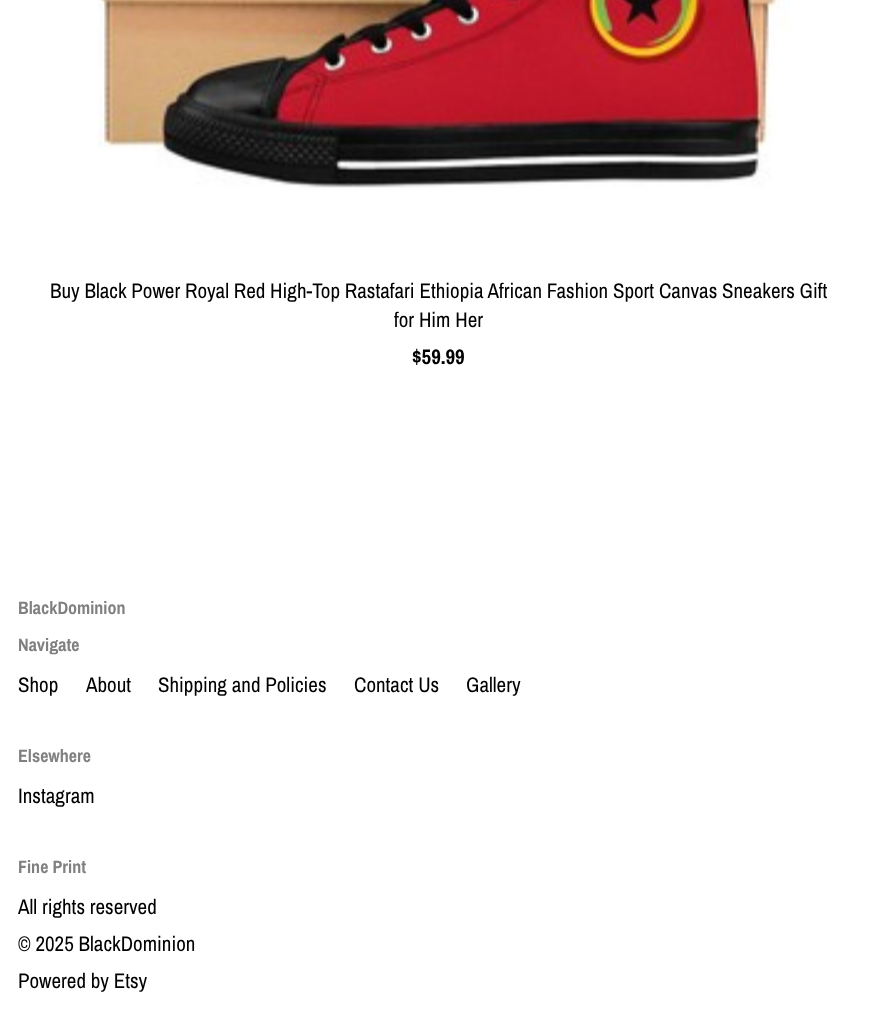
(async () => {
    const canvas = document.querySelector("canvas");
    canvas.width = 877;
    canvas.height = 1033;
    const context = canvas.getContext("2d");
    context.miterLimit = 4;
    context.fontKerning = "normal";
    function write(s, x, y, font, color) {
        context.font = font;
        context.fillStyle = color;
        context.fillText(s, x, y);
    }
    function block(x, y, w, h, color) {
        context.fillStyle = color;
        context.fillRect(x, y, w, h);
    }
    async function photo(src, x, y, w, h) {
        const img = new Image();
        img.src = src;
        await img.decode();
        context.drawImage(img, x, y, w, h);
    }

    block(0, 0, 877, 1033, "rgb(255, 255, 255)");
    await photo("media/1.png", 97, 0, 693, 188);
    write("Buy Black Power Royal Red High-Top Rastafari Ethiopia African Fashion Sport Canvas Sneakers Gift", 50, 298, "21px Archivo Narrow", "rgb(0, 0, 0)");
    write("for Him Her", 394, 327, "21px Archivo Narrow", "rgb(0, 0, 0)");
    write("$59.99", 412, 364, "bold 21px Archivo Narrow", "rgb(0, 0, 0)");
    write("BlackDominion", 18, 614, "bold 18px Archivo Narrow", "rgb(128, 128, 128)");
    write("Navigate", 18, 651, "bold 18px Archivo Narrow", "rgb(128, 128, 128)");
    write("Shop", 18, 692, "21px Archivo Narrow", "rgb(0, 0, 0)");
    write("About", 86, 692, "21px Archivo Narrow", "rgb(0, 0, 0)");
    write("Shipping and Policies", 158, 692, "21px Archivo Narrow", "rgb(0, 0, 0)");
    write("Contact Us", 354, 692, "21px Archivo Narrow", "rgb(0, 0, 0)");
    write("Gallery", 466, 692, "21px Archivo Narrow", "rgb(0, 0, 0)");
    write("Elsewhere", 18, 762, "bold 18px Archivo Narrow", "rgb(128, 128, 128)");
    write("Instagram", 18, 803, "21px Archivo Narrow", "rgb(0, 0, 0)");
    write("Fine Print", 18, 873, "bold 18px Archivo Narrow", "rgb(128, 128, 128)");
    write("All rights reserved", 18, 914, "21px Archivo Narrow", "rgb(0, 0, 0)");
    write("© 2025 BlackDominion", 18, 951, "21px Archivo Narrow", "rgb(0, 0, 0)");
    write("Powered by Etsy", 18, 988, "21px Archivo Narrow", "rgb(0, 0, 0)");
})();
